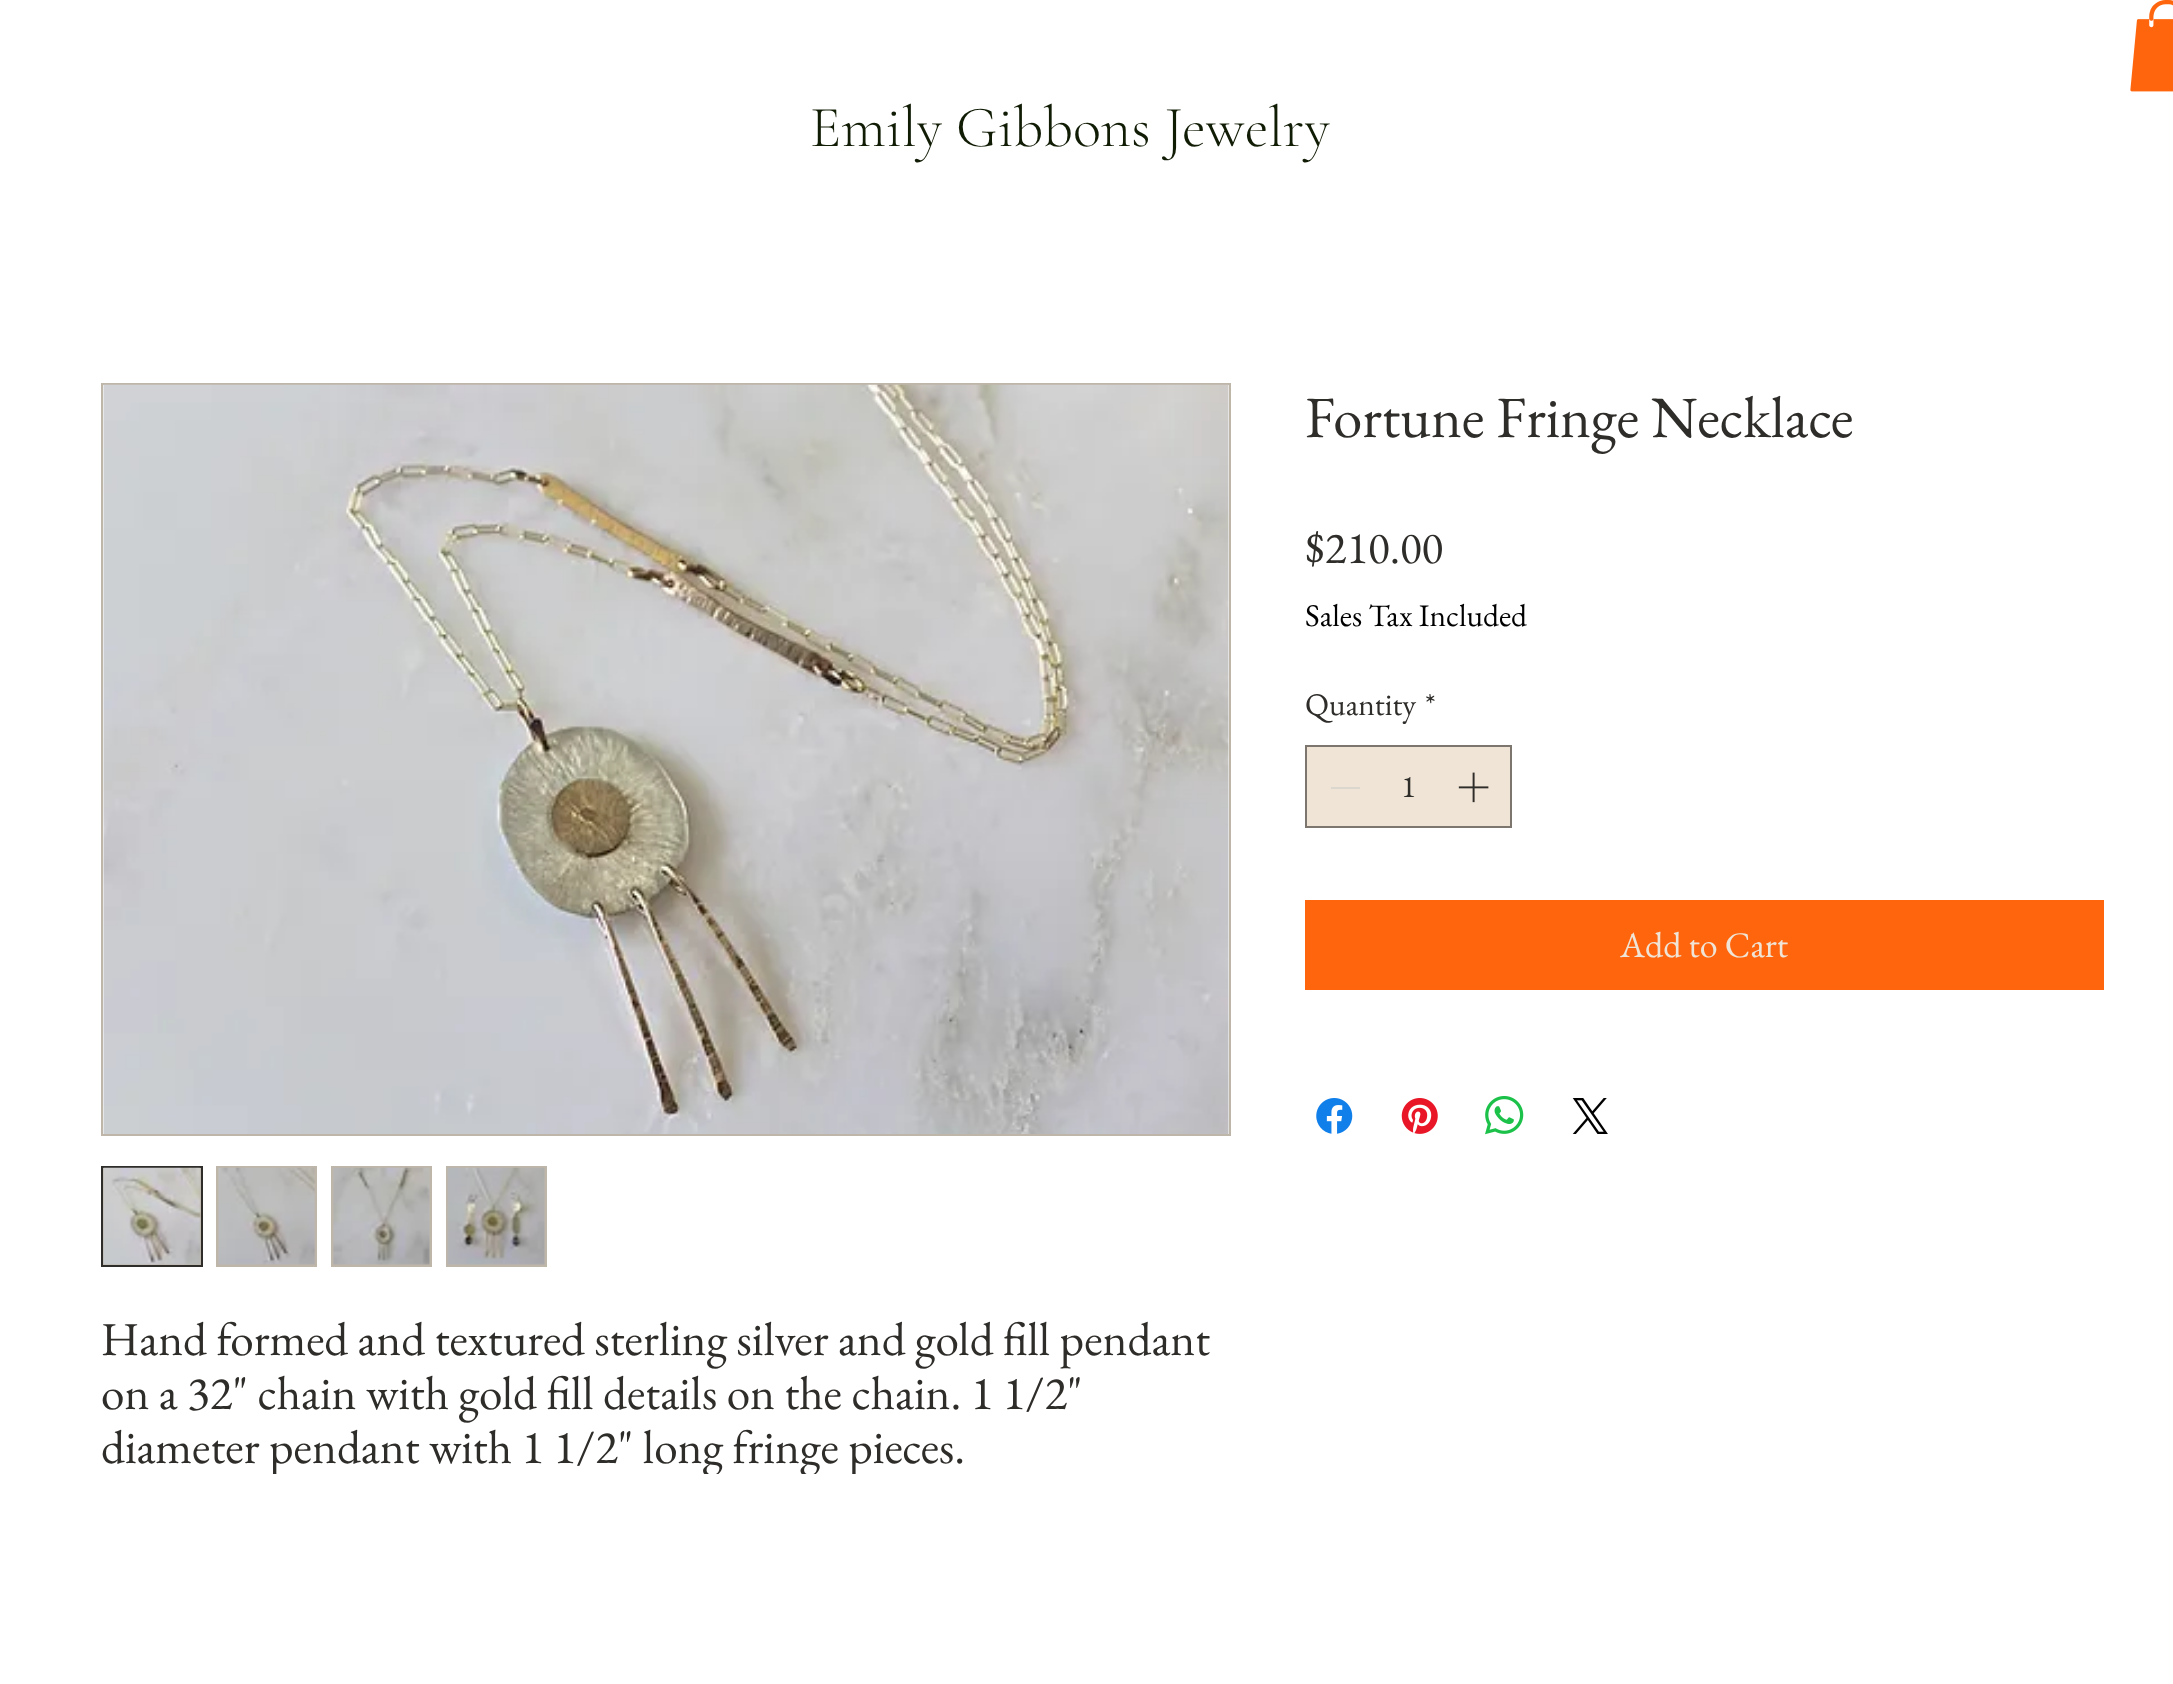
(async () => {
    const canvas = document.querySelector("canvas");
    canvas.width = 2173;
    canvas.height = 1684;
    const context = canvas.getContext("2d");
    context.miterLimit = 4;
    context.fontKerning = "normal";
    function write(s, x, y, font, color) {
        context.font = font;
        context.fillStyle = color;
        context.fillText(s, x, y);
    }
    function block(x, y, w, h, color) {
        context.fillStyle = color;
        context.fillRect(x, y, w, h);
    }
    async function photo(src, x, y, w, h) {
        const img = new Image();
        img.src = src;
        await img.decode();
        context.drawImage(img, x, y, w, h);
    }

    block(0, 0, 2173, 1684, "rgb(255, 255, 255)");
    await photo("media/1.png", 2130, 0, 43, 92);
    write("Emily Gibbons Jewelry", 810, 146, "300 58.5px Cormorant Garamond", "rgb(17, 28, 5)");
    write("Fortune Fringe Necklace", 1305, 437, "58.5px EB Garamond", "rgb(47, 45, 42)");
    write("$210.00", 1305, 563, "45px EB Garamond", "rgb(47, 45, 42)");
    write("Sales Tax Included", 1305, 626, "31.5px EB Garamond", "rgb(0, 0, 0)");
    write("Quantity", 1305, 715, "31.5px EB Garamond", "rgb(47, 45, 42)");
    write("*", 1425, 715, "31.5px EB Garamond", "rgb(47, 45, 42)");
    context.fillStyle = "rgb(239, 228, 213)";
    context.beginPath();
    context.rect(1306, 746, 205, 81);
    context.fill();
    context.strokeStyle = "rgb(124, 118, 110)";
    context.lineWidth = 2;
    context.stroke();
    block(1331, 787, 29, 2, "rgb(219, 214, 206)");
    write("1", 1401, 797, "31.5px EB Garamond", "rgb(47, 45, 42)");
    await photo("media/2.png", 1458, 772, 31, 31);
    block(1305, 900, 799, 90, "rgb(255, 101, 12)");
    write("Add to Cart", 1620, 957, "36px EB Garamond", "rgb(239, 228, 213)");
    await photo("media/3.png", 1316, 1098, 37, 36);
    await photo("media/4.png", 1401, 1098, 37, 36);
    await photo("media/5.png", 1485, 1096, 39, 39);
    await photo("media/6.png", 1572, 1098, 36, 36);
    context.strokeStyle = "rgb(191, 182, 170)";
    context.strokeRect(102, 384, 1128, 751);
    await photo("media/7.png", 103, 384, 1126, 750);
    context.fillStyle = "rgb(191, 182, 170)";
    context.beginPath();
    context.rect(102, 1167, 100, 99);
    context.fill();
    context.strokeStyle = "rgb(47, 45, 42)";
    context.stroke();
    await photo("media/8.png", 103, 1167, 98, 98);
    block(216, 1166, 101, 101, "rgb(191, 182, 170)");
    await photo("media/9.png", 218, 1167, 98, 98);
    block(331, 1166, 101, 101, "rgb(191, 182, 170)");
    await photo("media/10.png", 333, 1167, 97, 98);
    block(446, 1166, 101, 101, "rgb(191, 182, 170)");
    await photo("media/11.png", 447, 1167, 98, 98);
    write("Hand formed and textured sterling silver and gold fill pendant", 101, 1355, "47.25px EB Garamond", "rgb(47, 45, 42)");
    write("on a 32\" chain with gold fill details on the chain. 1 1/2\"", 101, 1409, "47.25px EB Garamond", "rgb(47, 45, 42)");
    context.save();
    context.beginPath();
    context.rect(101, 1312, 1125, 162);
    context.clip();
    write("diameter pendant with 1 1/2\" long fringe pieces.", 101, 1463, "47.25px EB Garamond", "rgb(47, 45, 42)");
    context.restore();
})();
